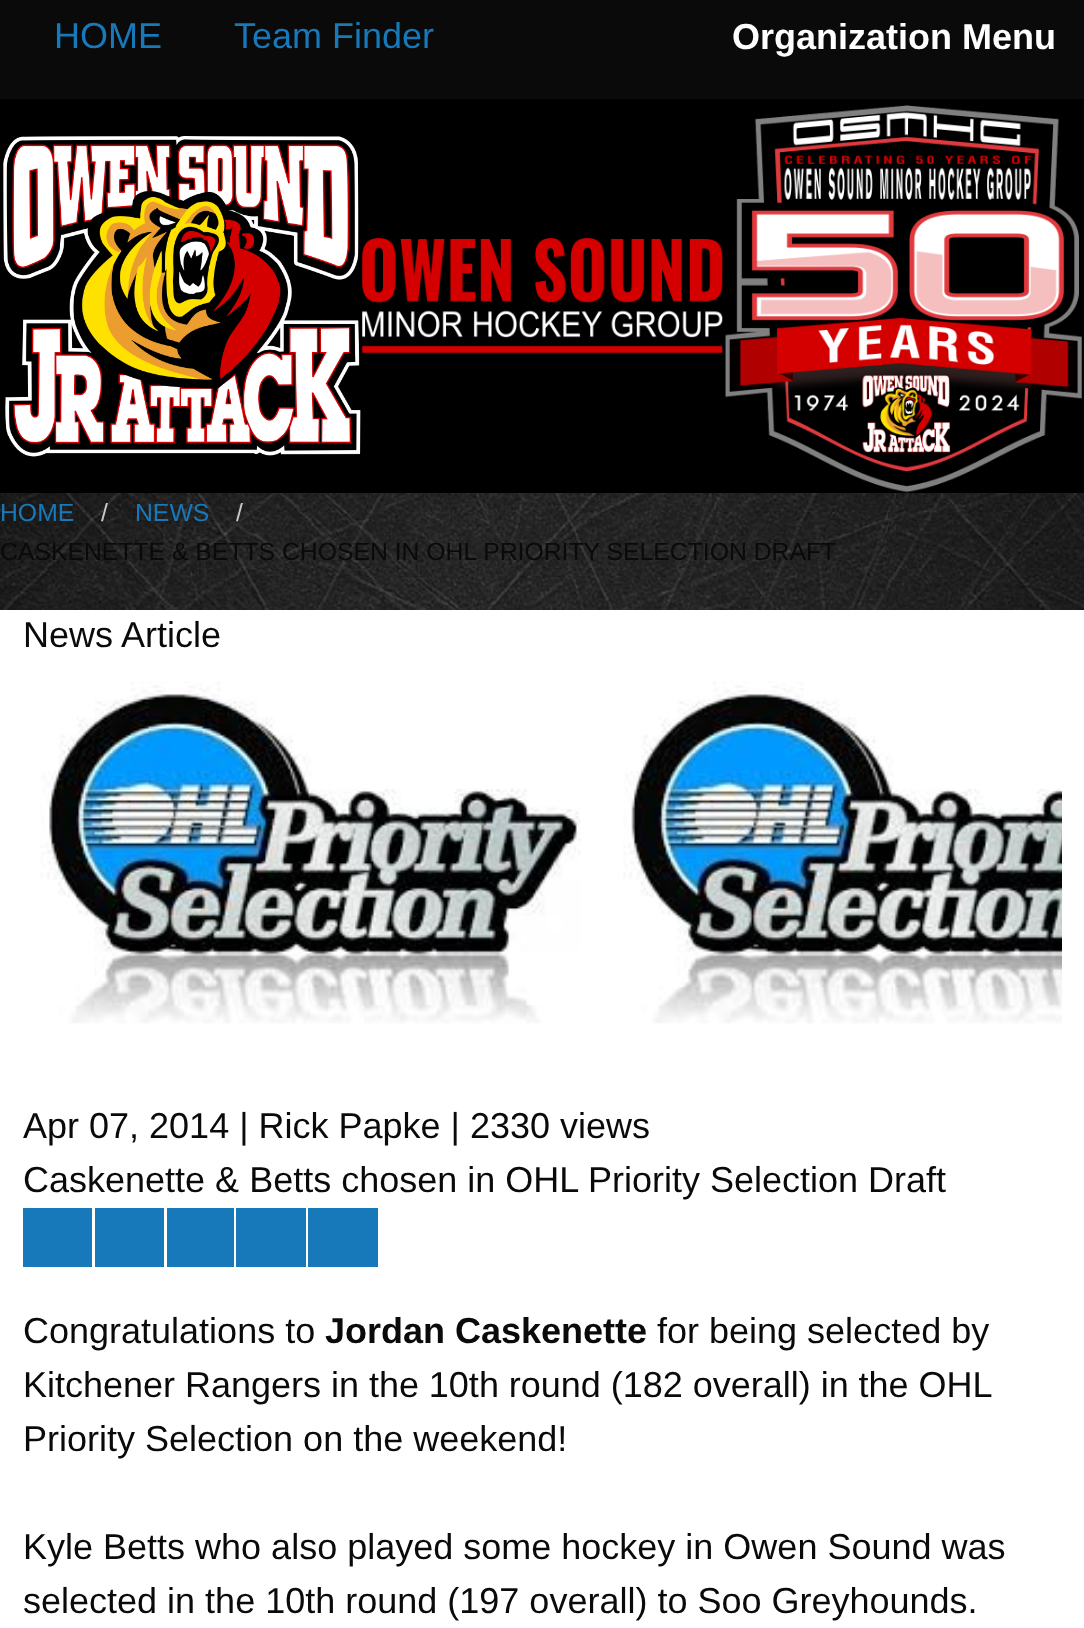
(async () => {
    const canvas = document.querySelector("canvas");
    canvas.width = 1084;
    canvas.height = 1628;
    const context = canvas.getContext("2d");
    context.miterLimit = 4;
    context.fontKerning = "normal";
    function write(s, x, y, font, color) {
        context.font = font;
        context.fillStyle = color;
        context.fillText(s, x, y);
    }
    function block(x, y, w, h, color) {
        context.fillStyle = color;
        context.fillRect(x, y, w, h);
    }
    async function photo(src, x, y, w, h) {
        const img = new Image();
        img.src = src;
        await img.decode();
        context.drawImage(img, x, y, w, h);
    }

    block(0, 0, 1084, 1628, "rgb(255, 255, 255)");
    await photo("media/1.png", 0, 493, 1084, 117);
    block(0, 0, 1084, 99, "rgb(10, 10, 10)");
    write("HOME", 54, 48, "36px Liberation Sans", "rgb(23, 121, 186)");
    write("Team Finder", 234, 48, "36px Liberation Sans", "rgb(23, 121, 186)");
    write("Organization Menu", 732, 49, "bold 36px Liberation Sans", "rgb(254, 254, 254)");
    block(0, 99, 1084, 394, "rgb(0, 0, 0)");
    await photo("media/2.png", 3, 136, 358, 321);
    await photo("media/3.png", 362, 238, 361, 115);
    await photo("media/4.png", 725, 105, 357, 388);
    write("HOME", 0, 521, "24.75px Liberation Sans", "rgb(23, 121, 186)");
    write("/", 101, 521, "24.75px Liberation Sans", "rgb(202, 202, 202)");
    write("NEWS", 135, 521, "24.75px Liberation Sans", "rgb(23, 121, 186)");
    write("/", 236, 521, "24.75px Liberation Sans", "rgb(202, 202, 202)");
    write("CASKENETTE & BETTS CHOSEN IN OHL PRIORITY SELECTION DRAFT", 0, 560, "24.75px Liberation Sans", "rgb(10, 10, 10)");
    write("News Article", 23, 647, "36px Liberation Sans", "rgb(10, 10, 10)");
    await photo("media/5.png", 40, 681, 1022, 343);
    await photo("media/6.png", 48, 696, 529, 257);
    write("Apr 07, 2014 | Rick Papke | 2330 views", 23, 1138, "36px Liberation Sans", "rgb(10, 10, 10)");
    write("Caskenette & Betts chosen in OHL Priority Selection Draft", 23, 1192, "36px Liberation Sans", "rgb(10, 10, 10)");
    block(23, 1208, 69, 59, "rgb(23, 121, 186)");
    block(95, 1208, 69, 59, "rgb(23, 121, 186)");
    block(167, 1208, 67, 59, "rgb(23, 121, 186)");
    block(236, 1208, 70, 59, "rgb(23, 121, 186)");
    block(308, 1208, 70, 59, "rgb(23, 121, 186)");
    write("Congratulations to", 23, 1343, "36px Liberation Sans", "rgb(10, 10, 10)");
    write("Jordan Caskenette", 325, 1343, "bold 36px Liberation Sans", "rgb(10, 10, 10)");
    write("for being selected by", 657, 1343, "36px Liberation Sans", "rgb(10, 10, 10)");
    context.wordSpacing = "-0.1px";
    write("Kitchener Rangers in the 10th round (182 overall) in the OHL", 23, 1397, "36px Liberation Sans", "rgb(10, 10, 10)");
    context.wordSpacing = "0px";
    write("Priority Selection on the weekend!", 23, 1451, "36px Liberation Sans", "rgb(10, 10, 10)");
    write("Kyle Betts who also played some hockey in Owen Sound was", 23, 1559, "36px Liberation Sans", "rgb(10, 10, 10)");
    write("selected in the 10th round (197 overall) to Soo Greyhounds.", 23, 1613, "36px Liberation Sans", "rgb(10, 10, 10)");
})();
